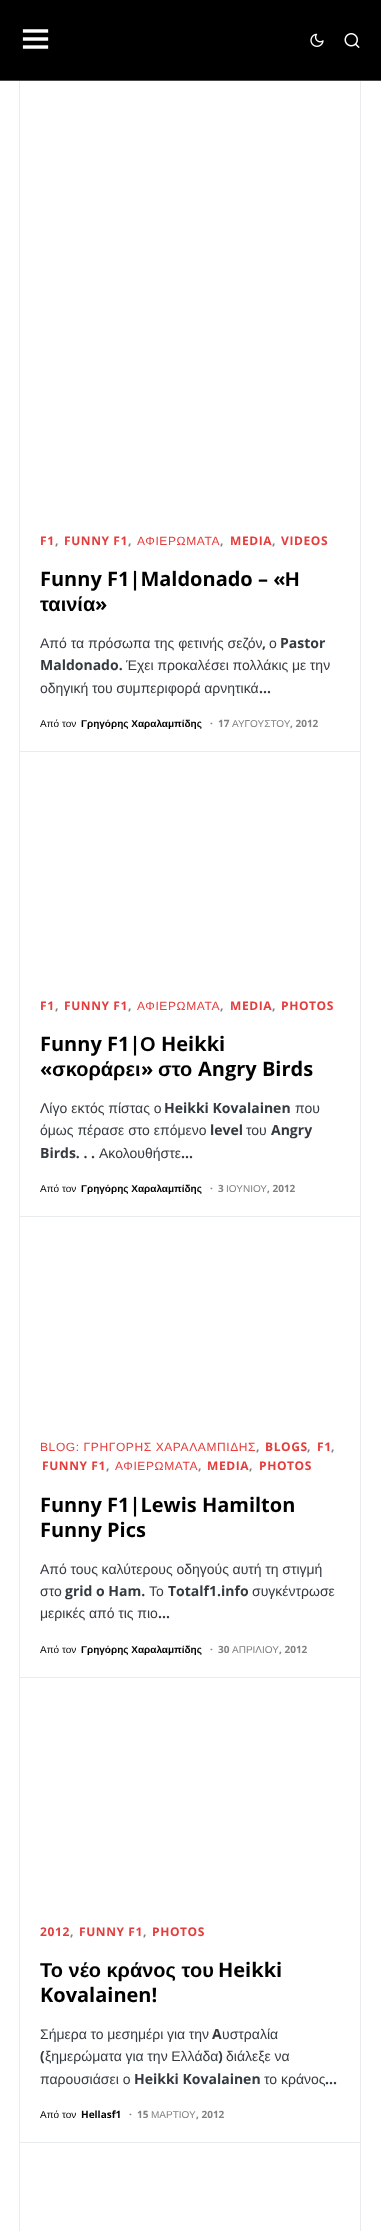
(async () => {
    const canvas = document.querySelector("canvas");
    canvas.width = 381;
    canvas.height = 2231;
    const context = canvas.getContext("2d");
    context.miterLimit = 4;
    context.fontKerning = "normal";
    function write(s, x, y, font, color) {
        context.font = font;
        context.fillStyle = color;
        context.fillText(s, x, y);
    }
    function block(x, y, w, h, color) {
        context.fillStyle = color;
        context.fillRect(x, y, w, h);
    }
    async function photo(src, x, y, w, h) {
        const img = new Image();
        img.src = src;
        await img.decode();
        context.drawImage(img, x, y, w, h);
    }

    block(0, 0, 381, 2231, "rgb(255, 255, 255)");
    context.strokeStyle = "rgb(233, 236, 239)";
    context.strokeRect(19.5, 42.5, 341, 709);
    block(0, 0, 381, 80, "rgb(0, 0, 0)");
    block(0, 80, 381, 1, "rgb(73, 73, 73)");
    await photo("media/1.png", 22, 29, 27, 20);
    await photo("media/2.png", 310, 33, 14, 14);
    await photo("media/3.png", 344, 33, 16, 15);
    context.letterSpacing = "0.6px";
    write("F1", 40, 545, "bold 12px Open Sans", "rgb(229, 60, 60)");
    write(",", 55, 545, "bold 12px Open Sans", "rgb(129, 129, 129)");
    write("FUNNY F1", 64, 545, "bold 12px Open Sans", "rgb(229, 60, 60)");
    write(",", 128, 545, "bold 12px Open Sans", "rgb(129, 129, 129)");
    write("ΑΦΙΕΡΩΜΑΤΑ", 137, 545, "12px Liberation Sans", "rgb(229, 60, 60)");
    write(",", 220, 545, "bold 12px Open Sans", "rgb(129, 129, 129)");
    write("MEDIA", 230, 545, "bold 12px Open Sans", "rgb(229, 60, 60)");
    write(",", 272, 545, "bold 12px Open Sans", "rgb(129, 129, 129)");
    write("VIDEOS", 281, 545, "bold 12px Open Sans", "rgb(229, 60, 60)");
    context.letterSpacing = "0px";
    write("Funny F1|Maldonado – «", 40, 586, "bold 20px Open Sans", "rgb(0, 0, 0)");
    write("Η", 285, 586, "bold 20px Liberation Sans", "rgb(0, 0, 0)");
    write("ταινία", 40, 611, "bold 20px Liberation Sans", "rgb(0, 0, 0)");
    write("»", 95, 611, "bold 20px Open Sans", "rgb(0, 0, 0)");
    write("Από τα πρόσωπα της φετινής σεζόν", 40, 648, "14px Liberation Sans", "rgb(52, 58, 64)");
    write(",", 262, 648, "bold 14px Open Sans", "rgb(52, 58, 64)");
    write("ο", 269, 648, "14px Liberation Sans", "rgb(52, 58, 64)");
    write("Pastor", 280, 648, "bold 14px Open Sans", "rgb(52, 58, 64)");
    write("Maldonado.", 40, 670, "bold 14px Open Sans", "rgb(52, 58, 64)");
    context.wordSpacing = "-0.25px";
    write("Έχει προκαλέσει πολλάκις με την", 126, 670, "14px Liberation Sans", "rgb(52, 58, 64)");
    write("οδηγική του συμπεριφορά αρνητικά", 40, 693, "14px Liberation Sans", "rgb(52, 58, 64)");
    context.wordSpacing = "0px";
    write("…", 259, 693, "bold 14px Open Sans", "rgb(52, 58, 64)");
    write("Από τον", 40, 727, "10px Liberation Sans", "rgb(0, 0, 0)");
    write("Γρηγόρης Χαραλαμπίδης", 81, 727, "bold 10px Liberation Sans", "rgb(0, 0, 0)");
    write("·", 210, 727, "bold 10px Open Sans", "rgb(129, 129, 129)");
    write("17", 218, 727, "bold 10px Open Sans", "rgb(129, 129, 129)");
    write("ΑΥΓΟΥΣΤΟΥ", 232, 727, "10px Liberation Sans", "rgb(129, 129, 129)");
    write(", 2012", 290, 727, "bold 10px Open Sans", "rgb(129, 129, 129)");
    context.strokeRect(19.5, 751.5, 341, 465);
    context.letterSpacing = "0.6px";
    write("F1", 40, 1010, "bold 12px Open Sans", "rgb(229, 60, 60)");
    write(",", 55, 1010, "bold 12px Open Sans", "rgb(129, 129, 129)");
    write("FUNNY F1", 64, 1010, "bold 12px Open Sans", "rgb(229, 60, 60)");
    write(",", 128, 1010, "bold 12px Open Sans", "rgb(129, 129, 129)");
    write("ΑΦΙΕΡΩΜΑΤΑ", 137, 1010, "12px Liberation Sans", "rgb(229, 60, 60)");
    write(",", 220, 1010, "bold 12px Open Sans", "rgb(129, 129, 129)");
    write("MEDIA", 230, 1010, "bold 12px Open Sans", "rgb(229, 60, 60)");
    write(",", 272, 1010, "bold 12px Open Sans", "rgb(129, 129, 129)");
    write("PHOTOS", 281, 1010, "bold 12px Open Sans", "rgb(229, 60, 60)");
    context.letterSpacing = "0px";
    write("Funny F1|", 40, 1051, "bold 20px Open Sans", "rgb(0, 0, 0)");
    write("Ο", 140, 1051, "bold 20px Liberation Sans", "rgb(0, 0, 0)");
    write("Heikki", 161, 1051, "bold 20px Open Sans", "rgb(0, 0, 0)");
    write("«", 40, 1076, "bold 20px Open Sans", "rgb(0, 0, 0)");
    write("σκοράρει", 52, 1076, "bold 20px Liberation Sans", "rgb(0, 0, 0)");
    write("»", 141, 1076, "bold 20px Open Sans", "rgb(0, 0, 0)");
    write("στο", 158, 1076, "bold 20px Liberation Sans", "rgb(0, 0, 0)");
    write("Angry Birds", 198, 1076, "bold 20px Open Sans", "rgb(0, 0, 0)");
    write("Λίγο εκτός πίστας ο", 40, 1113, "14px Liberation Sans", "rgb(52, 58, 64)");
    write("Heikki Kovalainen", 164, 1113, "bold 14px Open Sans", "rgb(52, 58, 64)");
    write("που", 295, 1113, "14px Liberation Sans", "rgb(52, 58, 64)");
    write("όμως πέρασε στο επόμενο", 40, 1135, "14px Liberation Sans", "rgb(52, 58, 64)");
    write("level", 210, 1135, "bold 14px Open Sans", "rgb(52, 58, 64)");
    write("του", 246, 1135, "14px Liberation Sans", "rgb(52, 58, 64)");
    write("Angry", 271, 1135, "bold 14px Open Sans", "rgb(52, 58, 64)");
    write("Birds. . .", 40, 1158, "bold 14px Open Sans", "rgb(52, 58, 64)");
    write("Ακολουθήστε", 99, 1158, "14px Liberation Sans", "rgb(52, 58, 64)");
    write("…", 181, 1158, "bold 14px Open Sans", "rgb(52, 58, 64)");
    write("Από τον", 40, 1192, "10px Liberation Sans", "rgb(0, 0, 0)");
    write("Γρηγόρης Χαραλαμπίδης", 81, 1192, "bold 10px Liberation Sans", "rgb(0, 0, 0)");
    write("·", 210, 1192, "bold 10px Open Sans", "rgb(129, 129, 129)");
    write("3", 218, 1192, "bold 10px Open Sans", "rgb(129, 129, 129)");
    write("ΙΟΥΝΙΟΥ", 226, 1192, "10px Liberation Sans", "rgb(129, 129, 129)");
    write(", 2012", 267, 1192, "bold 10px Open Sans", "rgb(129, 129, 129)");
    context.strokeRect(19.5, 1216.5, 341, 461);
    context.letterSpacing = "0.6px";
    write("BLOG: ΓΡΗΓΟΡΗΣ ΧΑΡΑΛΑΜΠΙΔΗΣ", 40, 1451, "12px Liberation Sans", "rgb(229, 60, 60)");
    write(",", 256, 1451, "bold 12px Open Sans", "rgb(129, 129, 129)");
    write("BLOGS", 265, 1451, "bold 12px Open Sans", "rgb(229, 60, 60)");
    write(",", 307, 1451, "bold 12px Open Sans", "rgb(129, 129, 129)");
    write("F1", 317, 1451, "bold 12px Open Sans", "rgb(229, 60, 60)");
    write(",", 331, 1451, "bold 12px Open Sans", "rgb(129, 129, 129)");
    write("FUNNY F1", 42, 1470, "bold 12px Open Sans", "rgb(229, 60, 60)");
    write(",", 106, 1470, "bold 12px Open Sans", "rgb(129, 129, 129)");
    write("ΑΦΙΕΡΩΜΑΤΑ", 115, 1470, "12px Liberation Sans", "rgb(229, 60, 60)");
    write(",", 198, 1470, "bold 12px Open Sans", "rgb(129, 129, 129)");
    write("MEDIA", 207, 1470, "bold 12px Open Sans", "rgb(229, 60, 60)");
    write(",", 249, 1470, "bold 12px Open Sans", "rgb(129, 129, 129)");
    write("PHOTOS", 259, 1470, "bold 12px Open Sans", "rgb(229, 60, 60)");
    context.letterSpacing = "0px";
    write("Funny F1|Lewis Hamilton", 40, 1512, "bold 20px Open Sans", "rgb(0, 0, 0)");
    write("Funny Pics", 40, 1537, "bold 20px Open Sans", "rgb(0, 0, 0)");
    context.wordSpacing = "-0.25px";
    write("Από τους καλύτερους οδηγούς αυτή τη στιγμή", 40, 1574, "14px Liberation Sans", "rgb(52, 58, 64)");
    context.wordSpacing = "0px";
    write("στο", 40, 1596, "14px Liberation Sans", "rgb(52, 58, 64)");
    write("grid o Ham.", 65, 1596, "bold 14px Open Sans", "rgb(52, 58, 64)");
    write("Το", 149, 1596, "14px Liberation Sans", "rgb(52, 58, 64)");
    write("Totalf1.info", 168, 1596, "bold 14px Open Sans", "rgb(52, 58, 64)");
    write("συγκέντρωσε", 252, 1596, "14px Liberation Sans", "rgb(52, 58, 64)");
    context.wordSpacing = "-0.25px";
    write("μερικές από τις πιο", 40, 1618, "14px Liberation Sans", "rgb(52, 58, 64)");
    context.wordSpacing = "0px";
    write("…", 158, 1618, "bold 14px Open Sans", "rgb(52, 58, 64)");
    write("Από τον", 40, 1653, "10px Liberation Sans", "rgb(0, 0, 0)");
    write("Γρηγόρης Χαραλαμπίδης", 81, 1653, "bold 10px Liberation Sans", "rgb(0, 0, 0)");
    write("·", 210, 1653, "bold 10px Open Sans", "rgb(129, 129, 129)");
    write("30", 218, 1653, "bold 10px Open Sans", "rgb(129, 129, 129)");
    write("ΑΠΡΙΛΙΟΥ", 232, 1653, "10px Liberation Sans", "rgb(129, 129, 129)");
    write(", 2012", 279, 1653, "bold 10px Open Sans", "rgb(129, 129, 129)");
    context.strokeRect(19.5, 1677.5, 341, 465);
    context.letterSpacing = "0.6px";
    write("2012", 40, 1936, "bold 12px Open Sans", "rgb(229, 60, 60)");
    write(",", 70, 1936, "bold 12px Open Sans", "rgb(129, 129, 129)");
    write("FUNNY F1", 79, 1936, "bold 12px Open Sans", "rgb(229, 60, 60)");
    write(",", 143, 1936, "bold 12px Open Sans", "rgb(129, 129, 129)");
    write("PHOTOS", 152, 1936, "bold 12px Open Sans", "rgb(229, 60, 60)");
    context.letterSpacing = "0px";
    write("Το νέο κράνος του", 40, 1977, "bold 20px Liberation Sans", "rgb(0, 0, 0)");
    write("Heikki", 218, 1977, "bold 20px Open Sans", "rgb(0, 0, 0)");
    write("Kovalainen!", 40, 2002, "bold 20px Open Sans", "rgb(0, 0, 0)");
    context.wordSpacing = "-0.25px";
    write("Σήμερα το μεσημέρι για την", 40, 2039, "14px Liberation Sans", "rgb(52, 58, 64)");
    context.wordSpacing = "0px";
    write("A", 212, 2039, "bold 14px Open Sans", "rgb(52, 58, 64)");
    write("υστραλία", 222, 2039, "14px Liberation Sans", "rgb(52, 58, 64)");
    write("(", 40, 2061, "bold 14px Open Sans", "rgb(52, 58, 64)");
    context.wordSpacing = "-0.25px";
    write("ξημερώματα για την Ελλάδα", 45, 2061, "14px Liberation Sans", "rgb(52, 58, 64)");
    context.wordSpacing = "0px";
    write(")", 218, 2061, "bold 14px Open Sans", "rgb(52, 58, 64)");
    context.wordSpacing = "-0.25px";
    write("διάλεξε να", 226, 2061, "14px Liberation Sans", "rgb(52, 58, 64)");
    context.wordSpacing = "0px";
    write("παρουσιάσει ο", 40, 2084, "14px Liberation Sans", "rgb(52, 58, 64)");
    write("Heikki Kovalainen", 134, 2084, "bold 14px Open Sans", "rgb(52, 58, 64)");
    write("το κράνος", 264, 2084, "14px Liberation Sans", "rgb(52, 58, 64)");
    write("…", 325, 2084, "bold 14px Open Sans", "rgb(52, 58, 64)");
    write("Από τον", 40, 2118, "10px Liberation Sans", "rgb(0, 0, 0)");
    write("Hellasf1", 81, 2118, "bold 10px Open Sans", "rgb(0, 0, 0)");
    write("·", 129, 2118, "bold 10px Open Sans", "rgb(129, 129, 129)");
    write("15", 137, 2118, "bold 10px Open Sans", "rgb(129, 129, 129)");
    write("ΜΑΡΤΙΟΥ", 151, 2118, "10px Liberation Sans", "rgb(129, 129, 129)");
    write(", 2012", 196, 2118, "bold 10px Open Sans", "rgb(129, 129, 129)");
    context.strokeRect(19.5, 2142.5, 341, 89);
})();
